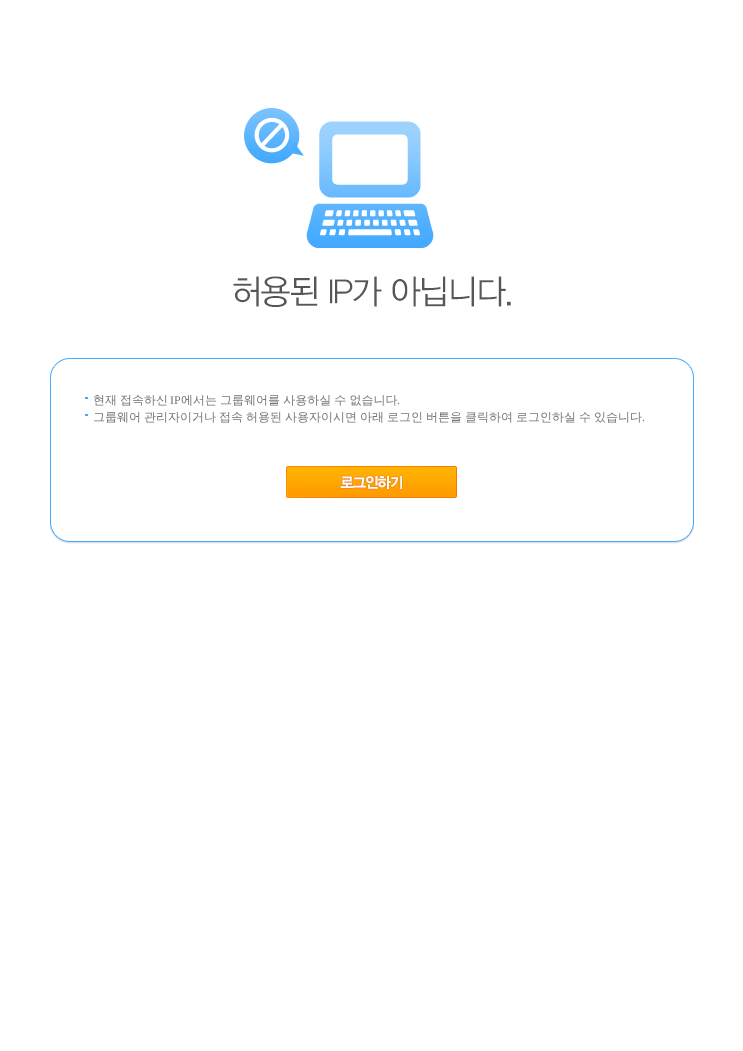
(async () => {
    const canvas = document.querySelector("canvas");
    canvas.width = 743;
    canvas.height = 1051;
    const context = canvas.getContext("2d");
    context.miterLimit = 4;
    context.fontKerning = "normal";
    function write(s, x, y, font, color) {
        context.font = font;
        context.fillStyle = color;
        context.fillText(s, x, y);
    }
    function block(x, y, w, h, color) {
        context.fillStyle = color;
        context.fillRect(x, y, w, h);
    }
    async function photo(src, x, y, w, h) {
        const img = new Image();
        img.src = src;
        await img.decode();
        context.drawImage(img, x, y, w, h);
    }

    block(0, 0, 743, 1051, "rgb(255, 255, 255)");
    await photo("media/1.png", 233, 108, 278, 199);
    await photo("media/2.png", 50, 358, 644, 186);
    block(85, 397, 3, 2, "rgb(67, 169, 255)");
    context.wordSpacing = "-0.5px";
    write("현재 접속하신", 93, 404, "500 12px WenQuanYi Zen Hei", "rgb(117, 117, 117)");
    context.wordSpacing = "0px";
    write("IP", 170, 404, "12px Liberation Serif", "rgb(117, 117, 117)");
    context.wordSpacing = "-0.5px";
    write("에서는 그룹웨어를 사용하실 수 없습니다", 181, 404, "500 12px WenQuanYi Zen Hei", "rgb(117, 117, 117)");
    context.wordSpacing = "0px";
    write(".", 397, 404, "12px Liberation Serif", "rgb(117, 117, 117)");
    block(85, 414, 3, 2, "rgb(67, 169, 255)");
    context.wordSpacing = "-0.6px";
    write("그룹웨어 관리자이거나 접속 허용된 사용자이시면 아래 로그인 버튼을 클릭하여 로그인하실 수 있습니다", 93, 421, "500 12px WenQuanYi Zen Hei", "rgb(117, 117, 117)");
    context.wordSpacing = "0px";
    write(".", 642, 421, "12px Liberation Serif", "rgb(117, 117, 117)");
    await photo("media/3.png", 286, 466, 171, 32);
})();
